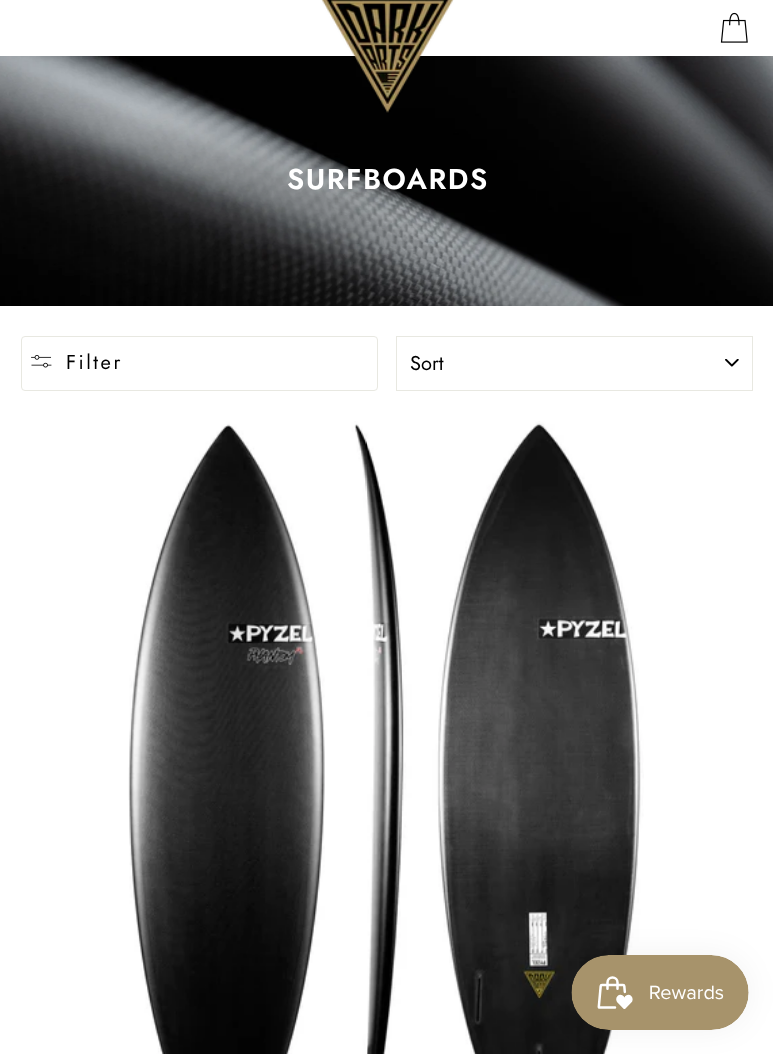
(async () => {
    const canvas = document.querySelector("canvas");
    canvas.width = 773;
    canvas.height = 1054;
    const context = canvas.getContext("2d");
    context.miterLimit = 4;
    context.fontKerning = "normal";
    function write(s, x, y, font, color) {
        context.font = font;
        context.fillStyle = color;
        context.fillText(s, x, y);
    }
    function block(x, y, w, h, color) {
        context.fillStyle = color;
        context.fillRect(x, y, w, h);
    }
    async function photo(src, x, y, w, h) {
        const img = new Image();
        img.src = src;
        await img.decode();
        context.drawImage(img, x, y, w, h);
    }

    block(0, 0, 773, 1054, "rgb(255, 255, 255)");
    await photo("media/3.png", 0, 56, 773, 250);
    await photo("media/1.png", 321, 0, 133, 113);
    await photo("media/2.png", 720, 12, 28, 31);
    context.letterSpacing = "1.5px";
    write("SURFBOARDS", 287, 189, "600 28.75px Jost", "rgb(255, 255, 255)");
    context.beginPath();
    context.roundRect(21.5, 336.5, 356, 54, 3.5);
    context.strokeStyle = "rgb(232, 232, 225)";
    context.stroke();
    await photo("media/4.png", 31, 355, 21, 13);
    context.letterSpacing = "2.5px";
    write("Filter", 66, 369, "20px Jost", "rgb(0, 0, 0)");
    await photo("media/5.png", 725, 359, 14, 8);
    context.strokeRect(396.5, 336.5, 356, 54);
    context.letterSpacing = "0px";
    write("Sort", 410, 370, "20px Jost", "rgb(0, 0, 0)");
    await photo("media/6.png", 128, 421, 516, 633);
    context.fillStyle = "rgba(0, 0, 0, 0.05)";
    context.filter = "blur(15.5px)";
    context.beginPath();
    context.roundRect(571, 955, 178, 75, 37.5);
    context.fill();
    context.filter = "none";
    await photo("media/7.png", 571, 955, 178, 75);
})();
